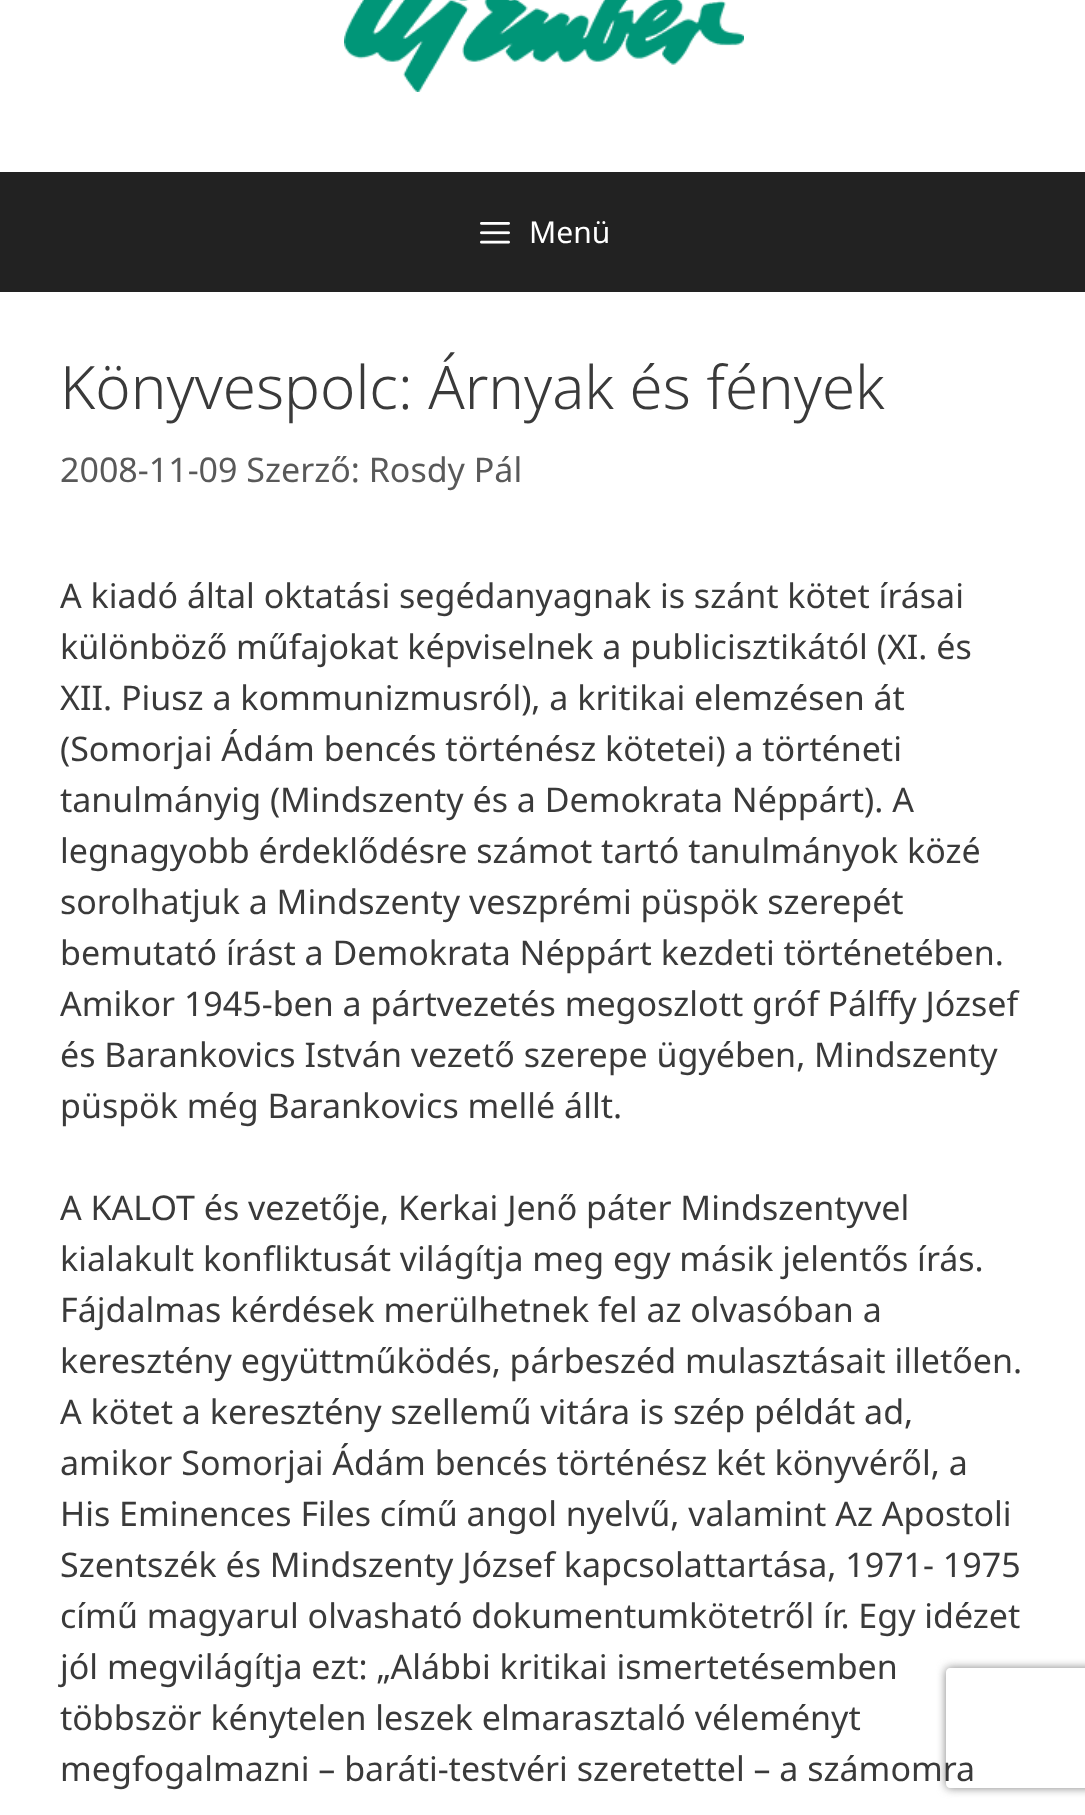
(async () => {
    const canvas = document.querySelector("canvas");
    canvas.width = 1085;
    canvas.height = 1815;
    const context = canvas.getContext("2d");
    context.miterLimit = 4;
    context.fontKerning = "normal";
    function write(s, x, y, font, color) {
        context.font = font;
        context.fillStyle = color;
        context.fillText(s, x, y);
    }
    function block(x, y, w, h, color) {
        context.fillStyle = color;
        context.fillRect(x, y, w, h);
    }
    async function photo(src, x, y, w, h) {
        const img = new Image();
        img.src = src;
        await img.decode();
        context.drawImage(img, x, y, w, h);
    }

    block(0, 0, 1085, 1815, "rgb(34, 34, 34)");
    block(0, 0, 1085, 172, "rgb(255, 255, 255)");
    await photo("media/1.png", 344, 0, 400, 92);
    await photo("media/2.png", 480, 222, 30, 22);
    write("Menü", 529, 243, "30px Noto Sans", "rgb(255, 255, 255)");
    block(0, 292, 1085, 1523, "rgb(255, 255, 255)");
    write("Könyvespolc: Árnyak és fények", 60, 409, "300 60px Noto Sans", "rgb(58, 58, 58)");
    write("2008-11-09 Szerző: Rosdy Pál", 60, 482, "34px Noto Sans", "rgb(89, 89, 89)");
    write("A kiadó által oktatási segédanyagnak is szánt kötet írásai", 60, 608, "34px Noto Sans", "rgb(58, 58, 58)");
    write("különböző műfajokat képviselnek a publicisztikától (XI. és", 60, 659, "34px Noto Sans", "rgb(58, 58, 58)");
    write("XII. Piusz a kommunizmusról), a kritikai elemzésen át", 60, 710, "34px Noto Sans", "rgb(58, 58, 58)");
    write("(Somorjai Ádám bencés történész kötetei) a történeti", 60, 761, "34px Noto Sans", "rgb(58, 58, 58)");
    write("tanulmányig (Mindszenty és a Demokrata Néppárt). A", 60, 812, "34px Noto Sans", "rgb(58, 58, 58)");
    write("legnagyobb érdeklődésre számot tartó tanulmányok közé", 60, 863, "34px Noto Sans", "rgb(58, 58, 58)");
    write("sorolhatjuk a Mindszenty veszprémi püspök szerepét", 60, 914, "34px Noto Sans", "rgb(58, 58, 58)");
    write("bemutató írást a Demokrata Néppárt kezdeti történetében.", 60, 965, "34px Noto Sans", "rgb(58, 58, 58)");
    write("Amikor 1945-ben a pártvezetés megoszlott gróf Pálffy József", 60, 1016, "34px Noto Sans", "rgb(58, 58, 58)");
    write("és Barankovics István vezető szerepe ügyében, Mindszenty", 60, 1067, "34px Noto Sans", "rgb(58, 58, 58)");
    write("püspök még Barankovics mellé állt.", 60, 1118, "34px Noto Sans", "rgb(58, 58, 58)");
    write("A KALOT és vezetője, Kerkai Jenő páter Mindszentyvel", 60, 1220, "34px Noto Sans", "rgb(58, 58, 58)");
    write("kialakult konfliktusát világítja meg egy másik jelentős írás.", 60, 1271, "34px Noto Sans", "rgb(58, 58, 58)");
    write("Fájdalmas kérdések merülhetnek fel az olvasóban a", 60, 1322, "34px Noto Sans", "rgb(58, 58, 58)");
    write("keresztény együttműködés, párbeszéd mulasztásait illetően.", 60, 1373, "34px Noto Sans", "rgb(58, 58, 58)");
    write("A kötet a keresztény szellemű vitára is szép példát ad,", 60, 1424, "34px Noto Sans", "rgb(58, 58, 58)");
    write("amikor Somorjai Ádám bencés történész két könyvéről, a", 60, 1475, "34px Noto Sans", "rgb(58, 58, 58)");
    write("His Eminences Files című angol nyelvű, valamint Az Apostoli", 60, 1526, "34px Noto Sans", "rgb(58, 58, 58)");
    write("Szentszék és Mindszenty József kapcsolattartása, 1971- 1975", 60, 1577, "34px Noto Sans", "rgb(58, 58, 58)");
    write("című magyarul olvasható dokumentumkötetről ír. Egy idézet", 60, 1628, "34px Noto Sans", "rgb(58, 58, 58)");
    write("jól megvilágítja ezt: „Alábbi kritikai ismertetésemben", 60, 1679, "34px Noto Sans", "rgb(58, 58, 58)");
    write("többször kénytelen leszek elmarasztaló véleményt", 60, 1730, "34px Noto Sans", "rgb(58, 58, 58)");
    write("megfogalmazni – baráti-testvéri szeretettel – a számomra", 60, 1781, "34px Noto Sans", "rgb(58, 58, 58)");
    context.save();
    context.beginPath();
    context.moveTo(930, 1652);
    context.lineTo(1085, 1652);
    context.lineTo(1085, 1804);
    context.lineTo(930, 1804);
    context.closePath();
    context.moveTo(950, 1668);
    context.lineTo(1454, 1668);
    context.bezierCurveTo(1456, 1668, 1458, 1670, 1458, 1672);
    context.lineTo(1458, 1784);
    context.bezierCurveTo(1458, 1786, 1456, 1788, 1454, 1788);
    context.lineTo(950, 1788);
    context.bezierCurveTo(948, 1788, 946, 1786, 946, 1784);
    context.lineTo(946, 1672);
    context.bezierCurveTo(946, 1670, 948, 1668, 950, 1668);
    context.closePath();
    context.clip("evenodd");
    context.fillStyle = "rgb(128, 128, 128)";
    context.filter = "blur(5px)";
    context.beginPath();
    context.roundRect(946, 1668, 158, 120, 4);
    context.fill();
    context.filter = "none";
    context.restore();
})();
